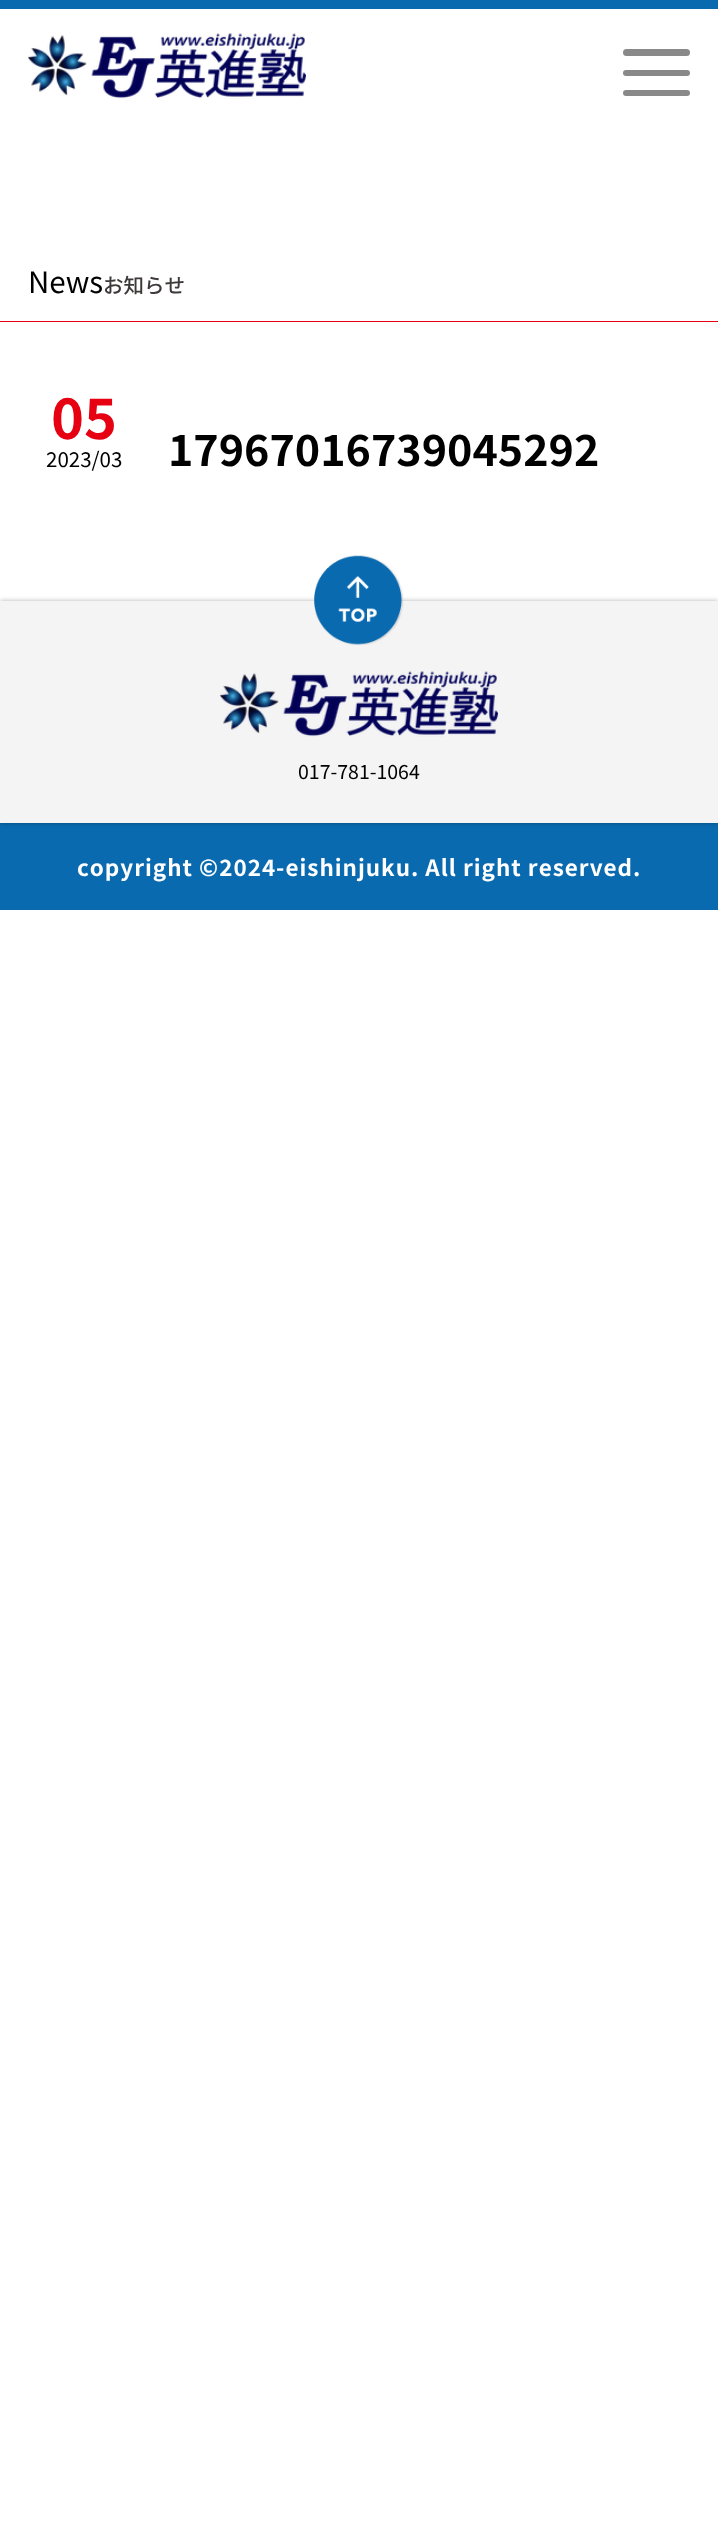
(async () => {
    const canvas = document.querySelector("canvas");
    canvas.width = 718;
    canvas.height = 2540;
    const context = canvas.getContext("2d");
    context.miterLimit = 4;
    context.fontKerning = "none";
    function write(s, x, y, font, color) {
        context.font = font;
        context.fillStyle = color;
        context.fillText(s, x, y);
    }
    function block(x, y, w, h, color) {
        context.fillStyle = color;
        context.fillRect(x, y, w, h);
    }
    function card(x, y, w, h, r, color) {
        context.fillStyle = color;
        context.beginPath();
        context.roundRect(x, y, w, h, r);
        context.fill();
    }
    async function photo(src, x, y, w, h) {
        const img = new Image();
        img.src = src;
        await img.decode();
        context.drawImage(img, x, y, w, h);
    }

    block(0, 0, 718, 2540, "rgb(255, 255, 255)");
    block(0, 0, 718, 9, "rgb(10, 106, 176)");
    await photo("media/1.png", 28, 33, 278, 66);
    card(623, 49, 67, 7, 3.5, "rgb(137, 137, 137)");
    card(623, 70, 67, 6, 3, "rgb(137, 137, 137)");
    card(623, 90, 67, 6, 3, "rgb(137, 137, 137)");
    block(0, 321, 718, 1, "rgb(230, 0, 18)");
    write("News", 28, 293, "29.5px Noto Sans JP", "rgb(0, 0, 0)");
    write("お知らせ", 103, 293, "500 20.5px Noto Sans JP", "rgb(62, 58, 57)");
    write("05", 51, 439, "bold 56px Noto Sans JP", "rgb(230, 0, 18)");
    write("2023/03", 46, 467, "20.5px Noto Sans JP", "rgb(0, 0, 0)");
    write("17967016739045292", 168, 466, "bold 43px Noto Sans JP", "rgb(0, 0, 0)");
    block(0, 823, 718, 87, "rgb(10, 106, 176)");
    context.fillStyle = "rgba(0, 0, 0, 0.3)";
    context.filter = "blur(2.5px)";
    context.beginPath();
    context.rect(0, 601, 718, 222);
    context.fill();
    context.filter = "none";
    block(0, 601, 718, 222, "rgb(244, 244, 245)");
    await photo("media/2.png", 314, 555, 90, 90);
    await photo("media/3.png", 220, 671, 278, 66);
    write("017-781-1064", 298, 779, "19.5px Noto Sans JP", "rgb(0, 0, 0)");
    context.letterSpacing = "1px";
    write("copyright ©2024-eishinjuku. All right reserved.", 77, 876, "bold 22.45px Noto Sans JP", "rgb(255, 255, 255)");
})();
